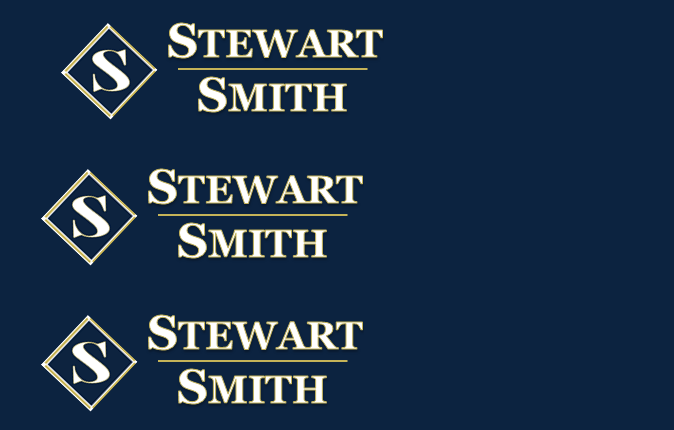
(async () => {
    const canvas = document.querySelector("canvas");
    canvas.width = 674;
    canvas.height = 430;
    const context = canvas.getContext("2d");
    context.miterLimit = 4;
    context.fontKerning = "normal";
    function block(x, y, w, h, color) {
        context.fillStyle = color;
        context.fillRect(x, y, w, h);
    }
    async function photo(src, x, y, w, h) {
        const img = new Image();
        img.src = src;
        await img.decode();
        context.drawImage(img, x, y, w, h);
    }

    block(0, 0, 674, 430, "rgb(12, 35, 64)");
    await photo("media/1.png", 61, 22, 323, 98);
    await photo("media/1.png", 41, 168, 323, 98);
    await photo("media/1.png", 41, 314, 323, 98);
})();
